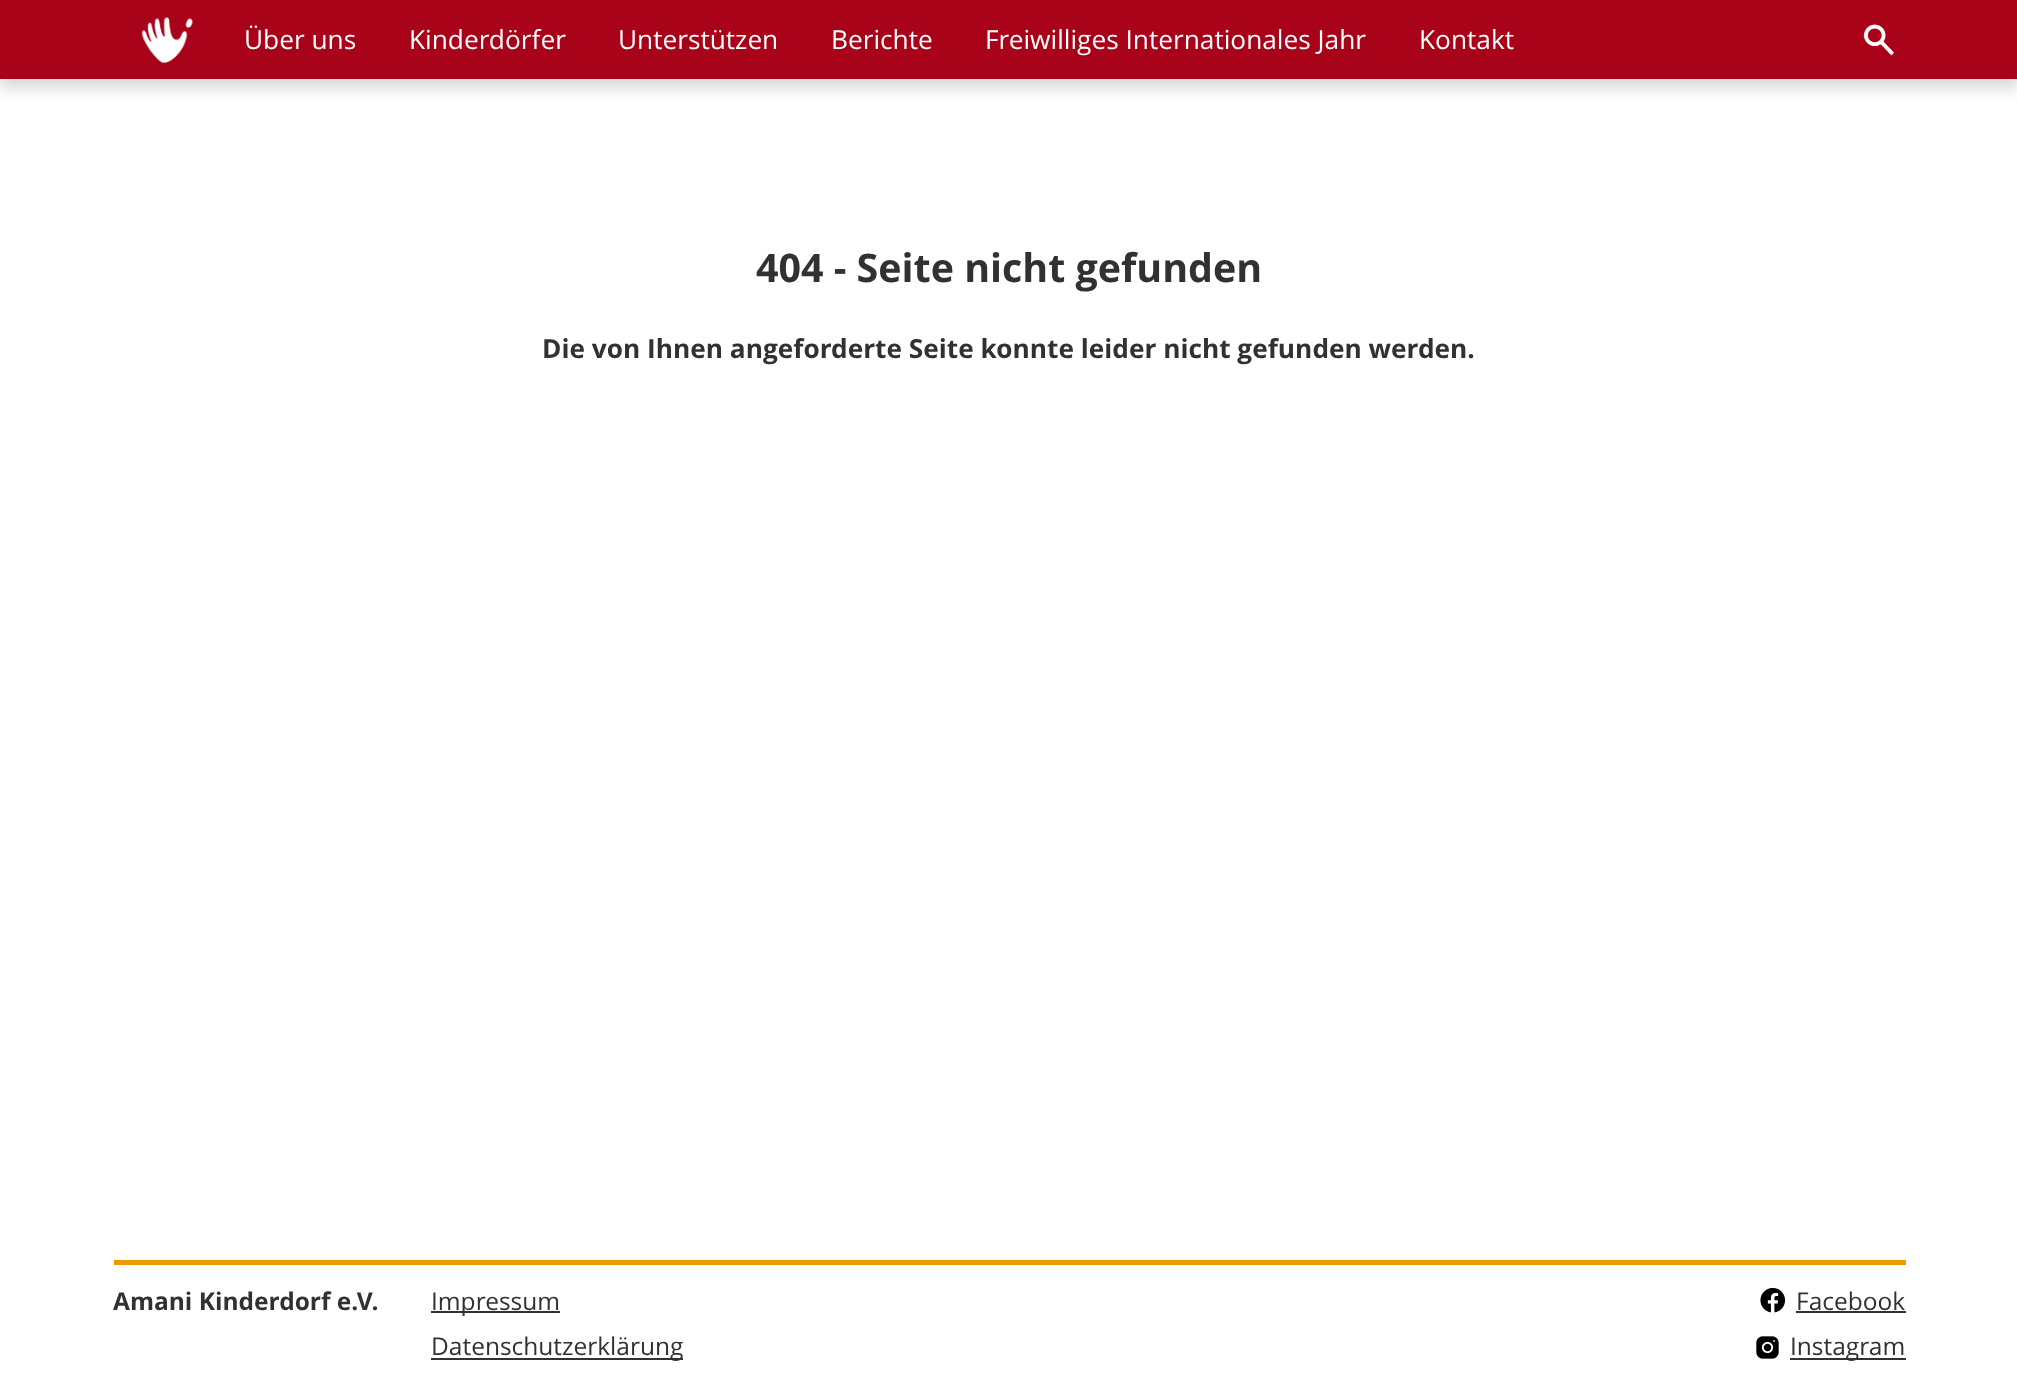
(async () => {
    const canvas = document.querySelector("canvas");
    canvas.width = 2017;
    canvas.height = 1389;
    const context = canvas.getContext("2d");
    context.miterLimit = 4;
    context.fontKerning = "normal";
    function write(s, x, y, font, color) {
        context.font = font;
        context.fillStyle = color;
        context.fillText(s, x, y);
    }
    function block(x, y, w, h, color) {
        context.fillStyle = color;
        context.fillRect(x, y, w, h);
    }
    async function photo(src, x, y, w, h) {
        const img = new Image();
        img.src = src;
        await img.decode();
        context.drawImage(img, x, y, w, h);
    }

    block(0, 0, 2017, 1389, "rgb(255, 255, 255)");
    context.fillStyle = "rgba(0, 0, 0, 0.15)";
    context.filter = "blur(7px)";
    context.beginPath();
    context.rect(0, 11, 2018, 78);
    context.fill();
    context.filter = "none";
    block(0, 0, 2017, 79, "rgb(168, 3, 25)");
    await photo("media/1.png", 141, 17, 52, 46);
    write("Über uns", 244, 49, "26.25px Open Sans", "rgb(255, 255, 255)");
    write("Kinderdörfer", 409, 49, "26.25px Open Sans", "rgb(255, 255, 255)");
    write("Unterstützen", 618, 49, "26.25px Open Sans", "rgb(255, 255, 255)");
    write("Berichte", 831, 49, "26.25px Open Sans", "rgb(255, 255, 255)");
    write("Freiwilliges Internationales Jahr", 985, 49, "26.25px Open Sans", "rgb(255, 255, 255)");
    write("Kontakt", 1419, 49, "26.25px Open Sans", "rgb(255, 255, 255)");
    await photo("media/2.png", 1863, 24, 31, 32);
    write("404 - Seite nicht gefunden", 756, 282, "bold 39.4px Open Sans", "rgb(49, 49, 49)");
    write("Die von Ihnen angeforderte Seite konnte leider nicht gefunden werden.", 542, 358, "bold 26.25px Open Sans", "rgb(49, 49, 49)");
    block(114, 1260, 1792, 5, "rgb(235, 155, 0)");
    write("Amani Kinderdorf e.V.", 113, 1310, "bold 24.5px Open Sans", "rgb(49, 49, 49)");
    block(431, 1311, 129, 2, "rgb(49, 49, 49)");
    write("Impressum", 431, 1310, "24.5px Open Sans", "rgb(49, 49, 49)");
    block(431, 1358, 252, 2, "rgb(49, 49, 49)");
    write("Datenschutzerklärung", 431, 1355, "24.5px Open Sans", "rgb(49, 49, 49)");
    await photo("media/3.png", 1760, 1287, 26, 26);
    write("Facebook", 1796, 1310, "24.5px Open Sans", "rgb(49, 49, 49)");
    block(1796, 1311, 110, 2, "rgb(49, 49, 49)");
    await photo("media/4.png", 1756, 1336, 23, 23);
    block(1790, 1358, 116, 2, "rgb(49, 49, 49)");
    write("Instagram", 1790, 1355, "24.5px Open Sans", "rgb(49, 49, 49)");
})();
